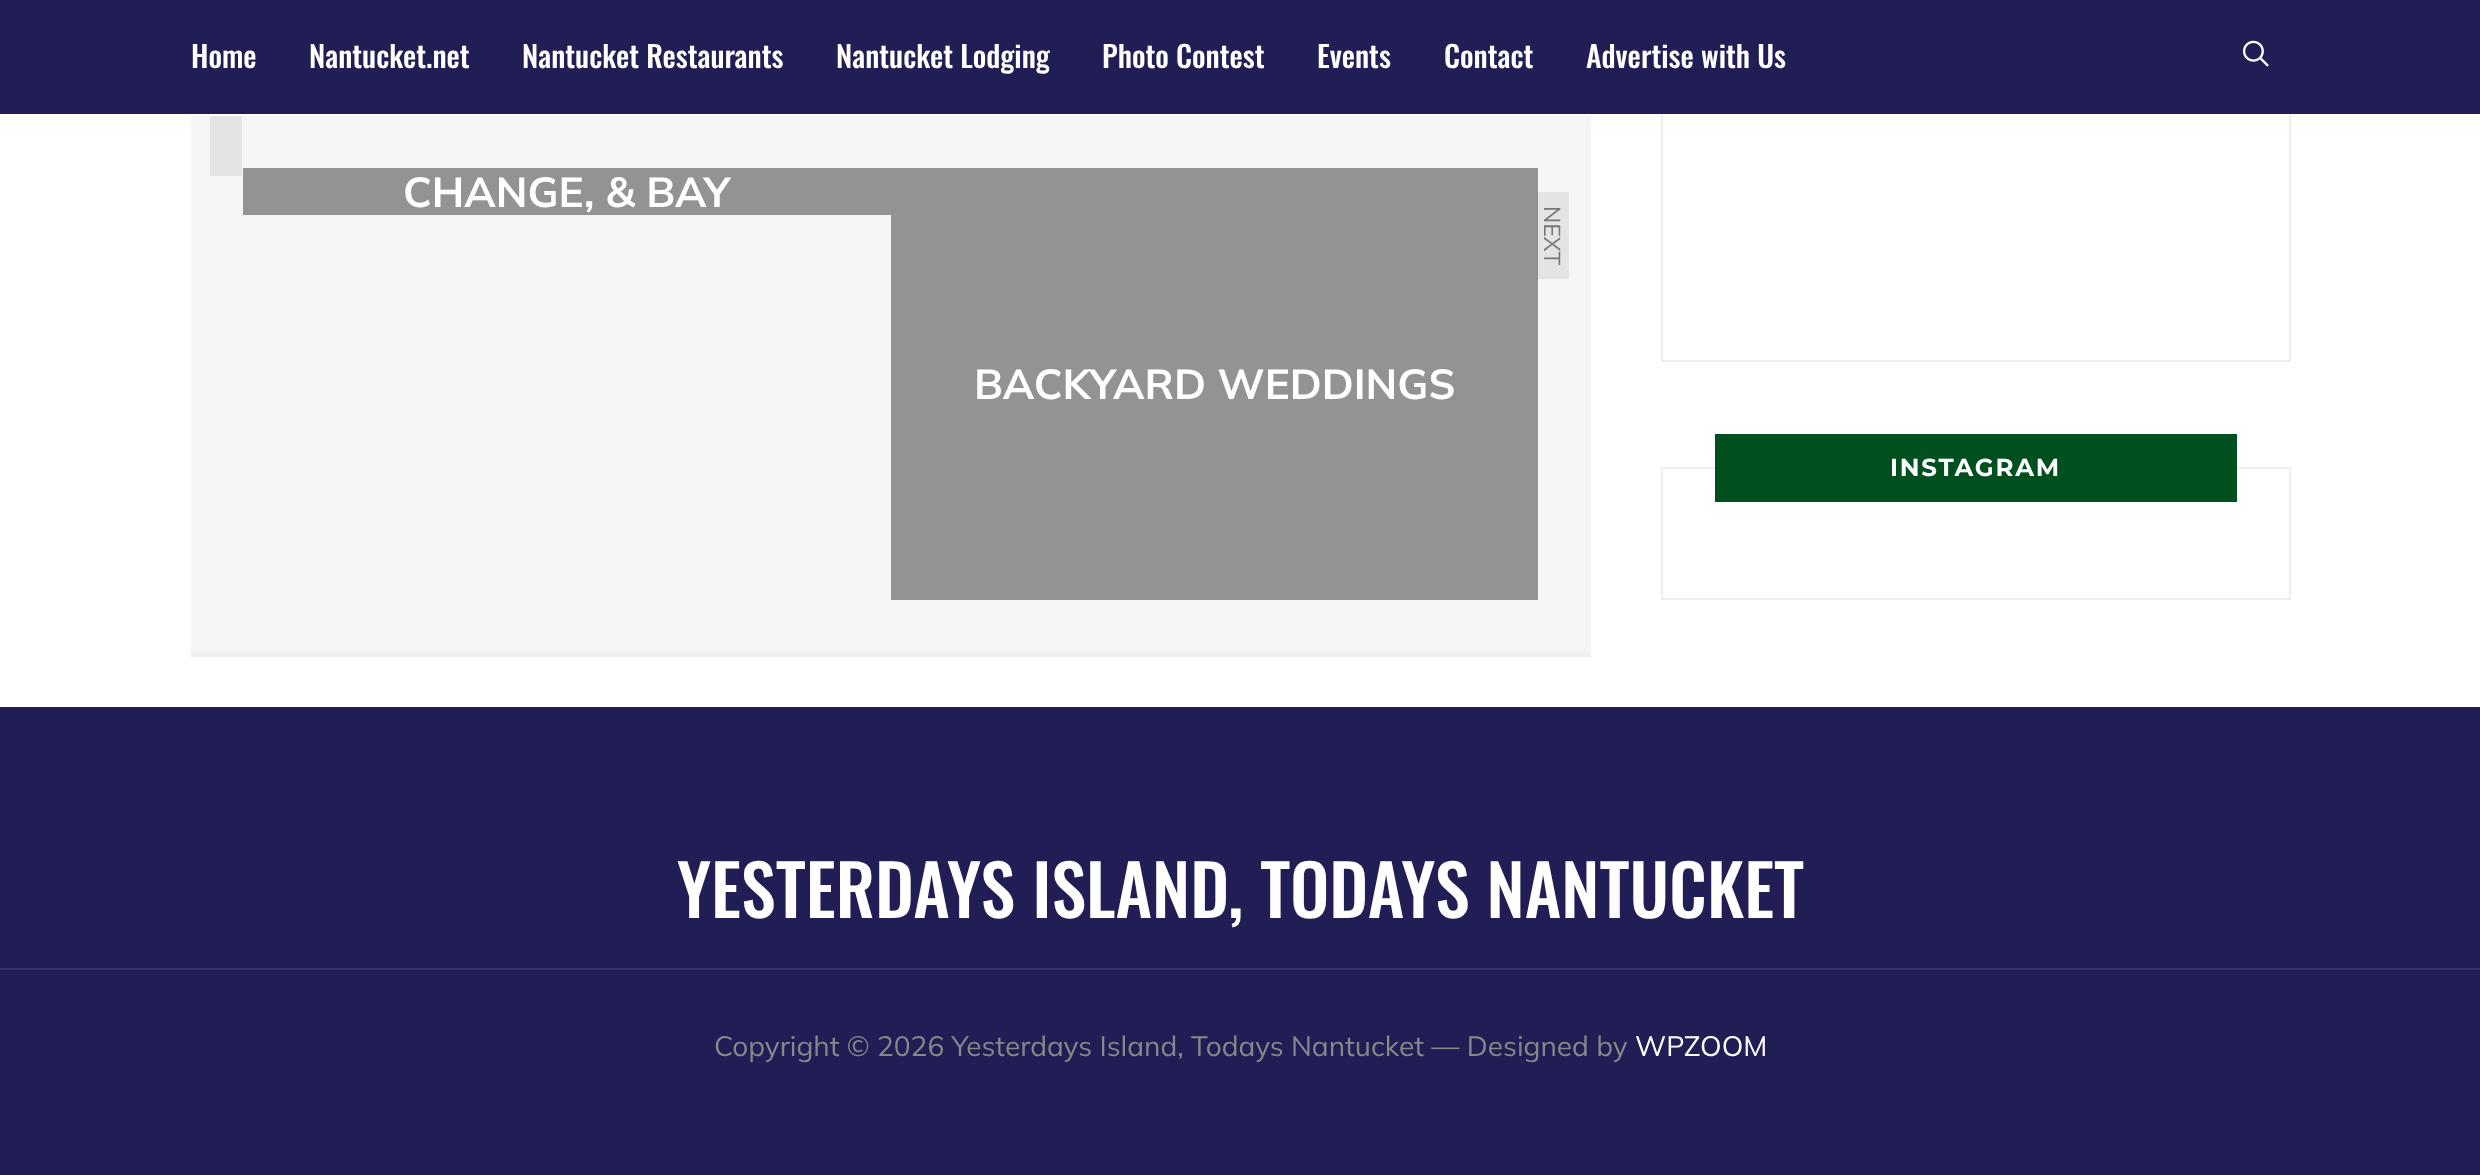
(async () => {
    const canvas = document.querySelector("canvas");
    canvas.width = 2480;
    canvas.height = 1175;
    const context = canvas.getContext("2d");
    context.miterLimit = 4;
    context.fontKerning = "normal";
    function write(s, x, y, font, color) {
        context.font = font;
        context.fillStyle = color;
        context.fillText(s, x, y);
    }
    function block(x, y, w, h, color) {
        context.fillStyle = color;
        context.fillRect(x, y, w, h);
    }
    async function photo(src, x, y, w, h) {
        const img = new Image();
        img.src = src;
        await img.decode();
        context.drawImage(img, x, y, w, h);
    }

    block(0, 0, 2480, 1175, "rgb(255, 255, 255)");
    context.strokeStyle = "rgb(238, 238, 238)";
    context.lineWidth = 2;
    context.strokeRect(1662, -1, 628, 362);
    block(0, 0, 2480, 114, "rgb(32, 30, 84)");
    write("Home", 191, 68, "500 29.75px Oswald", "rgb(255, 255, 255)");
    write("Nantucket.net", 309, 68, "500 29.75px Oswald", "rgb(255, 255, 255)");
    write("Nantucket Restaurants", 522, 68, "500 29.75px Oswald", "rgb(255, 255, 255)");
    write("Nantucket Lodging", 836, 68, "500 29.75px Oswald", "rgb(255, 255, 255)");
    write("Photo Contest", 1102, 68, "500 29.75px Oswald", "rgb(255, 255, 255)");
    write("Events", 1317, 68, "500 29.75px Oswald", "rgb(255, 255, 255)");
    write("Contact", 1444, 68, "500 29.75px Oswald", "rgb(255, 255, 255)");
    write("Advertise with Us", 1586, 68, "500 29.75px Oswald", "rgb(255, 255, 255)");
    await photo("media/1.png", 2242, 40, 27, 27);
    block(191, 116, 1400, 537, "rgb(244, 245, 245)");
    block(1538, 192, 31, 87, "rgb(227, 228, 228)");
    block(191, 653, 1400, 4, "rgb(238, 238, 238)");
    block(210, 116, 32, 60, "rgb(227, 228, 228)");
    block(243, 168, 648, 47, "rgb(146, 147, 147)");
    write("CHANGE, & BAY", 403, 207, "bold 42px Mulish", "rgb(255, 255, 255)");
    context.font = "23px Mulish";
    context.fillStyle = "rgb(119, 119, 119)";
    context.save();
    context.translate(1544, 206);
    context.rotate(90 * Math.PI / 180);
    context.fillText("NEXT", 0, 0);
    context.restore();
    block(891, 168, 647, 432, "rgb(146, 147, 147)");
    block(1537, 192, 1, 87, "rgb(136, 137, 137)");
    write("BACKYARD WEDDINGS", 974, 399, "bold 42px Mulish", "rgb(255, 255, 255)");
    context.strokeRect(1662, 468, 628, 131);
    block(1715, 434, 522, 68, "rgb(0, 79, 31)");
    context.letterSpacing = "1.75px";
    write("INSTAGRAM", 1890, 476, "bold 24.5px Montserrat", "rgb(255, 255, 255)");
    block(0, 707, 2480, 468, "rgb(32, 30, 84)");
    context.letterSpacing = "0px";
    write("YESTERDAYS ISLAND, TODAYS NANTUCKET", 677, 918, "500 70px Oswald", "rgb(255, 255, 255)");
    block(0, 968, 2480, 2, "rgb(54, 53, 101)");
    write("Copyright © 2026 Yesterdays Island, Todays Nantucket — Designed by", 714, 1056, "28px Mulish", "rgb(135, 136, 138)");
    write("WPZOOM", 1635, 1056, "28px Mulish", "rgb(255, 255, 255)");
})();
